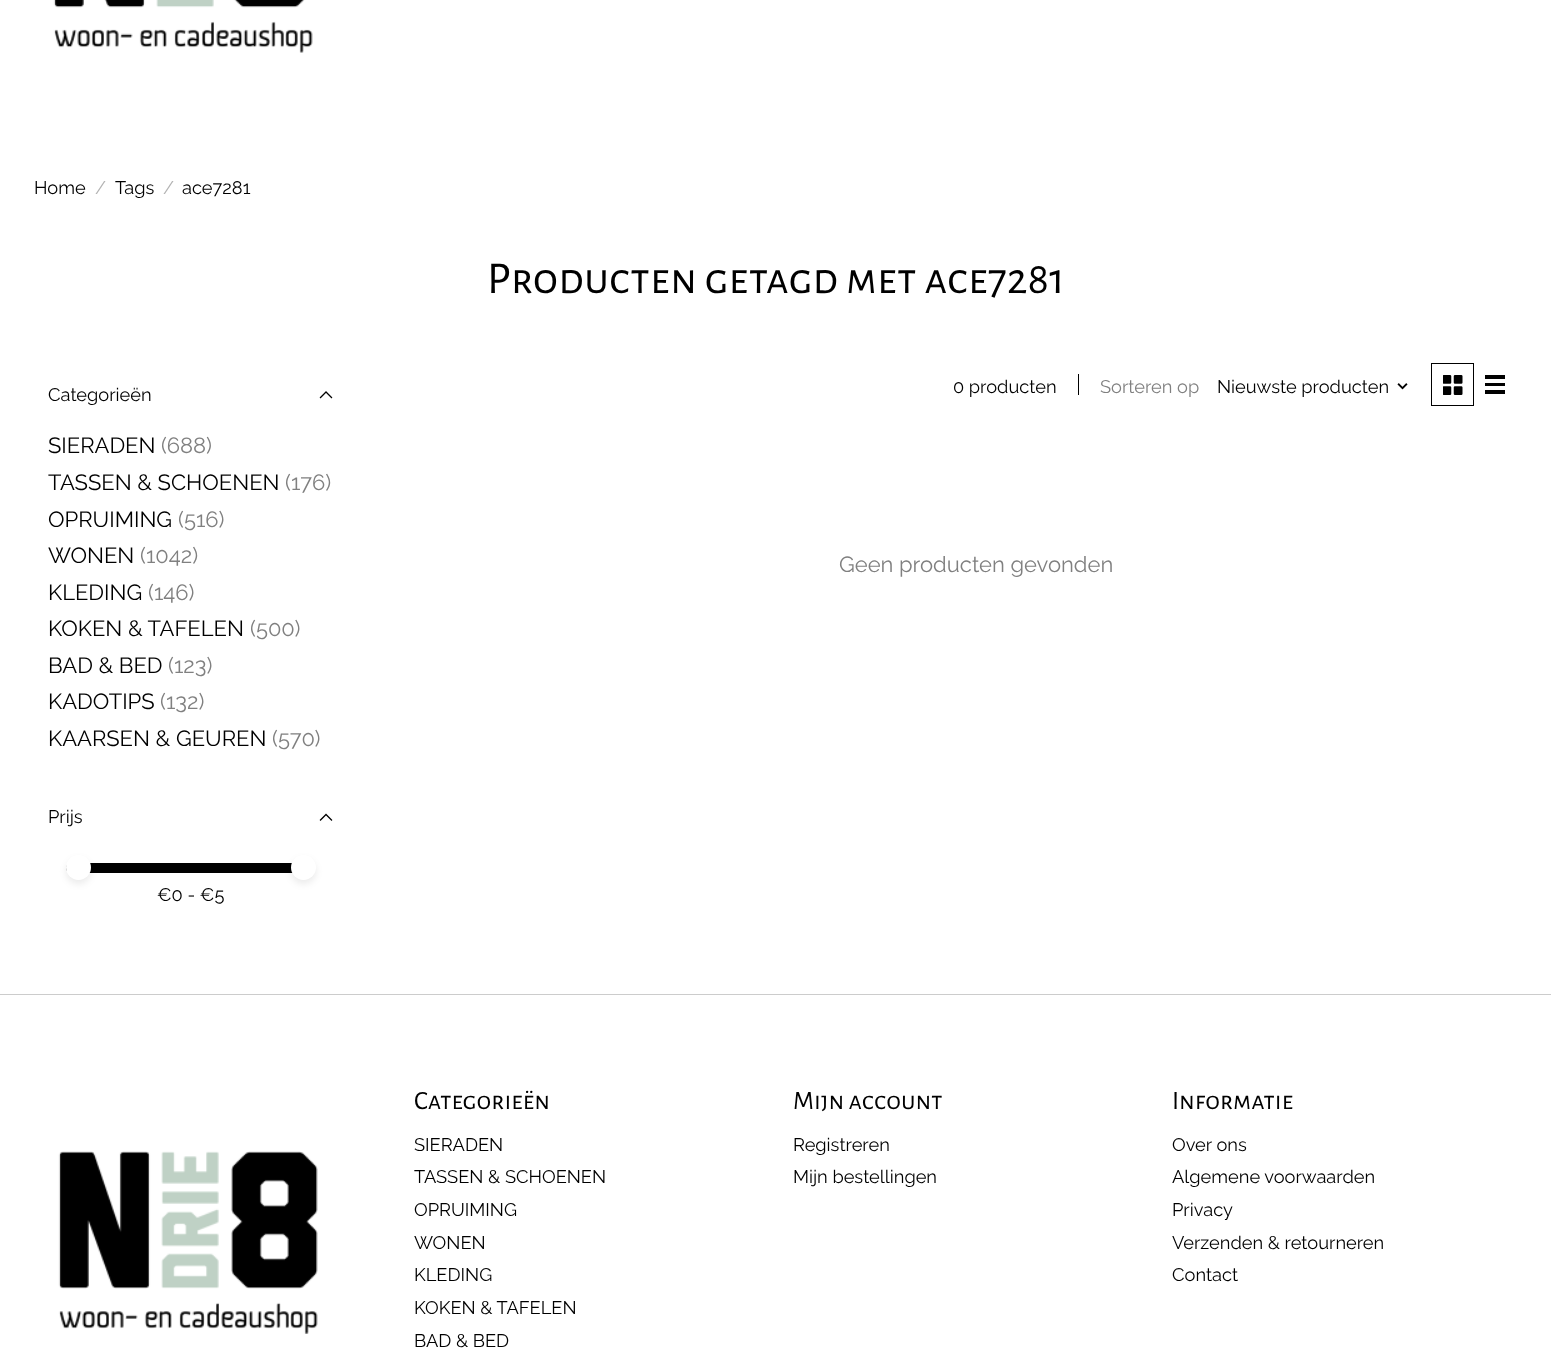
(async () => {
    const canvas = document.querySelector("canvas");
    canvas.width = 1551;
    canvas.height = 1355;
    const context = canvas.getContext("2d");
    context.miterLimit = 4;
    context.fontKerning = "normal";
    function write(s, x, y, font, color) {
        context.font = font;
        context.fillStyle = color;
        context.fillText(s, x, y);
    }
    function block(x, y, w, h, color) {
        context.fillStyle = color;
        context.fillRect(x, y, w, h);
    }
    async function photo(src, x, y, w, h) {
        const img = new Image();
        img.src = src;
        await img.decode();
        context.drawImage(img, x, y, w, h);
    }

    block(0, 0, 1551, 1355, "rgb(255, 255, 255)");
    await photo("media/1.png", 53, 0, 260, 53);
    write("Home", 34, 194, "18.25px Raleway", "rgb(0, 0, 0)");
    write("/", 95, 194, "18.25px Raleway", "rgb(179, 179, 179)");
    write("Tags", 115, 194, "18.25px Raleway", "rgb(0, 0, 0)");
    write("/", 163, 194, "18.25px Raleway", "rgb(179, 179, 179)");
    write("ace7281", 182, 194, "18.25px Raleway", "rgb(0, 0, 0)");
    write("Producten getagd met ace7281", 487, 293, "45.6px Alegreya Sans SC", "rgb(0, 0, 0)");
    write("Categorieën", 48, 401, "18.25px Raleway", "rgb(0, 0, 0)");
    context.beginPath();
    context.moveTo(320.5, 397.5);
    context.lineTo(326, 392);
    context.moveTo(331.5, 397.5);
    context.lineTo(326, 392);
    context.strokeStyle = "rgb(0, 0, 0)";
    context.lineWidth = 1.3;
    context.lineCap = "square";
    context.stroke();
    write("SIERADEN", 48, 453, "22px Raleway", "rgb(0, 0, 0)");
    write("(688)", 161, 453, "22px Raleway", "rgb(128, 128, 128)");
    write("TASSEN & SCHOENEN", 48, 490, "22px Raleway", "rgb(0, 0, 0)");
    write("(176)", 285, 490, "22px Raleway", "rgb(128, 128, 128)");
    write("OPRUIMING", 48, 527, "22px Raleway", "rgb(0, 0, 0)");
    write("(516)", 178, 527, "22px Raleway", "rgb(128, 128, 128)");
    write("WONEN", 48, 563, "22px Raleway", "rgb(0, 0, 0)");
    write("(1042)", 140, 563, "22px Raleway", "rgb(128, 128, 128)");
    write("KLEDING", 48, 600, "22px Raleway", "rgb(0, 0, 0)");
    write("(146)", 148, 600, "22px Raleway", "rgb(128, 128, 128)");
    write("KOKEN & TAFELEN", 48, 636, "22px Raleway", "rgb(0, 0, 0)");
    write("(500)", 250, 636, "22px Raleway", "rgb(128, 128, 128)");
    write("BAD & BED", 48, 673, "22px Raleway", "rgb(0, 0, 0)");
    write("(123)", 168, 673, "22px Raleway", "rgb(128, 128, 128)");
    write("KADOTIPS", 48, 709, "22px Raleway", "rgb(0, 0, 0)");
    write("(132)", 160, 709, "22px Raleway", "rgb(128, 128, 128)");
    write("KAARSEN & GEUREN", 48, 746, "22px Raleway", "rgb(0, 0, 0)");
    write("(570)", 272, 746, "22px Raleway", "rgb(128, 128, 128)");
    write("Prijs", 48, 823, "18.25px Raleway", "rgb(0, 0, 0)");
    context.beginPath();
    context.moveTo(320.5, 820);
    context.lineTo(326, 814.5);
    context.moveTo(331.5, 820);
    context.lineTo(326, 814.5);
    context.stroke();
    context.beginPath();
    context.roundRect(66, 863, 238, 10, [5, 0, 0, 5]);
    context.fill();
    context.fillStyle = "rgba(0, 0, 0, 0.08)";
    context.filter = "blur(3.5px)";
    context.beginPath();
    context.roundRect(66, 859, 25, 25, 12.5);
    context.fill();
    context.filter = "none";
    context.fillStyle = "rgb(255, 255, 255)";
    context.beginPath();
    context.arc(78.5, 867.5, 12.5, 0, Math.PI * 2);
    context.fill();
    write("€0 - €5", 157, 901, "18.25px Raleway", "rgb(0, 0, 0)");
    context.fillStyle = "rgba(0, 0, 0, 0.08)";
    context.filter = "blur(3.5px)";
    context.beginPath();
    context.roundRect(291, 859, 25, 25, 12.5);
    context.fill();
    context.filter = "none";
    context.fillStyle = "rgb(255, 255, 255)";
    context.beginPath();
    context.arc(303.5, 867.5, 12.5, 0, Math.PI * 2);
    context.fill();
    write("0 producten", 953, 393, "18.25px Raleway", "rgb(0, 0, 0)");
    block(1078, 374, 1, 21, "rgb(0, 0, 0)");
    write("Sorteren op", 1100, 393, "18.25px Raleway", "rgb(128, 128, 128)");
    write("Nieuwste producten", 1217, 393, "18.25px Raleway", "rgb(0, 0, 0)");
    await photo("media/2.png", 1397, 383, 11, 7);
    context.lineWidth = 1;
    context.strokeRect(1431.5, 363.5, 42, 42);
    await photo("media/3.png", 1443, 375, 20, 20);
    block(1485, 375, 20, 4, "rgb(0, 0, 0)");
    block(1485, 383, 20, 3, "rgb(0, 0, 0)");
    block(1485, 390, 20, 4, "rgb(0, 0, 0)");
    write("Geen producten gevonden", 839, 572, "22px Raleway", "rgb(128, 128, 128)");
    block(0, 994, 1551, 1, "rgb(204, 204, 204)");
    await photo("media/4.png", 58, 1151, 260, 183);
    write("Categorieën", 414, 1109, "26.5px Alegreya Sans SC", "rgb(0, 0, 0)");
    write("SIERADEN", 414, 1151, "18.25px Raleway", "rgb(0, 0, 0)");
    write("TASSEN & SCHOENEN", 414, 1183, "18.25px Raleway", "rgb(0, 0, 0)");
    write("OPRUIMING", 414, 1216, "18.25px Raleway", "rgb(0, 0, 0)");
    write("WONEN", 414, 1249, "18.25px Raleway", "rgb(0, 0, 0)");
    write("KLEDING", 414, 1281, "18.25px Raleway", "rgb(0, 0, 0)");
    write("KOKEN & TAFELEN", 414, 1314, "18.25px Raleway", "rgb(0, 0, 0)");
    write("BAD & BED", 414, 1347, "18.25px Raleway", "rgb(0, 0, 0)");
    write("Mijn account", 793, 1109, "26.5px Alegreya Sans SC", "rgb(0, 0, 0)");
    write("Registreren", 793, 1151, "18.25px Raleway", "rgb(0, 0, 0)");
    write("Mijn bestellingen", 793, 1183, "18.25px Raleway", "rgb(0, 0, 0)");
    write("Informatie", 1172, 1109, "26.5px Alegreya Sans SC", "rgb(0, 0, 0)");
    write("Over ons", 1172, 1151, "18.25px Raleway", "rgb(0, 0, 0)");
    write("Algemene voorwaarden", 1172, 1183, "18.25px Raleway", "rgb(0, 0, 0)");
    write("Privacy", 1172, 1216, "18.25px Raleway", "rgb(0, 0, 0)");
    write("Verzenden & retourneren", 1172, 1249, "18.25px Raleway", "rgb(0, 0, 0)");
    write("Contact", 1172, 1281, "18.25px Raleway", "rgb(0, 0, 0)");
})();
